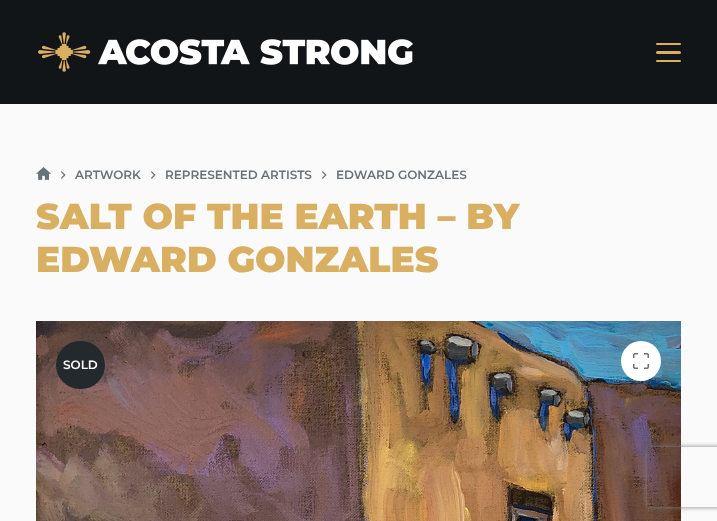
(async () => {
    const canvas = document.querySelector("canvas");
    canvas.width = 717;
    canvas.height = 521;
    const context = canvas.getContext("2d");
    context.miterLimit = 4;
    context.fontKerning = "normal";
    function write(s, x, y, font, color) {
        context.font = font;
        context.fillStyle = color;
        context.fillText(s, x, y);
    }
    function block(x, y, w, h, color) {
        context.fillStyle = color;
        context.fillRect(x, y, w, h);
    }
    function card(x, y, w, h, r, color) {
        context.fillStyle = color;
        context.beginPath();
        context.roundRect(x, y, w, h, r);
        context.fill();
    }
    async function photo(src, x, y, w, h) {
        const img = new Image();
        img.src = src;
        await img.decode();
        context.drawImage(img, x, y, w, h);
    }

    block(0, 0, 717, 521, "rgb(250, 250, 250)");
    block(0, 0, 717, 104, "rgb(17, 21, 24)");
    await photo("media/1.png", 38, 32, 375, 40);
    card(656, 43, 25, 2, 1, "rgb(217, 175, 98)");
    card(656, 51, 25, 3, 1.5, "rgb(217, 175, 98)");
    card(656, 60, 25, 2, 1, "rgb(217, 175, 98)");
    await photo("media/2.png", 36, 167, 15, 13);
    await photo("media/3.png", 61, 171, 5, 8);
    write("ARTWORK", 75, 179, "600 12px Montserrat", "rgb(104, 114, 121)");
    await photo("media/3.png", 151, 171, 5, 8);
    write("REPRESENTED ARTISTS", 165, 179, "600 12px Montserrat", "rgb(104, 114, 121)");
    await photo("media/3.png", 322, 171, 5, 8);
    write("EDWARD GONZALES", 336, 179, "600 12px Montserrat", "rgb(104, 114, 121)");
    write("SALT OF THE EARTH – BY", 36, 229, "900 36px Montserrat", "rgb(217, 175, 98)");
    write("EDWARD GONZALES", 36, 272, "900 36px Montserrat", "rgb(217, 175, 98)");
    await photo("media/4.png", 36, 321, 645, 200);
    card(56, 341, 49, 48, 24, "rgb(36, 41, 46)");
    write("SOLD", 63, 369, "600 12px Montserrat", "rgb(255, 255, 255)");
    context.beginPath();
    context.arc(641, 361, 20, 0, Math.PI * 2);
    context.fill();
    await photo("media/5.png", 633, 353, 16, 16);
    context.save();
    context.beginPath();
    context.moveTo(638, 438);
    context.lineTo(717, 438);
    context.lineTo(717, 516);
    context.lineTo(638, 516);
    context.closePath();
    context.moveTo(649, 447);
    context.lineTo(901, 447);
    context.bezierCurveTo(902, 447, 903, 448, 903, 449);
    context.lineTo(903, 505);
    context.bezierCurveTo(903, 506, 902, 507, 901, 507);
    context.lineTo(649, 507);
    context.bezierCurveTo(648, 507, 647, 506, 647, 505);
    context.lineTo(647, 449);
    context.bezierCurveTo(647, 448, 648, 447, 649, 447);
    context.closePath();
    context.clip("evenodd");
    context.fillStyle = "rgb(128, 128, 128)";
    context.filter = "blur(2.5px)";
    context.beginPath();
    context.roundRect(647, 447, 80, 60, 2);
    context.fill();
    context.filter = "none";
    context.restore();
})();
